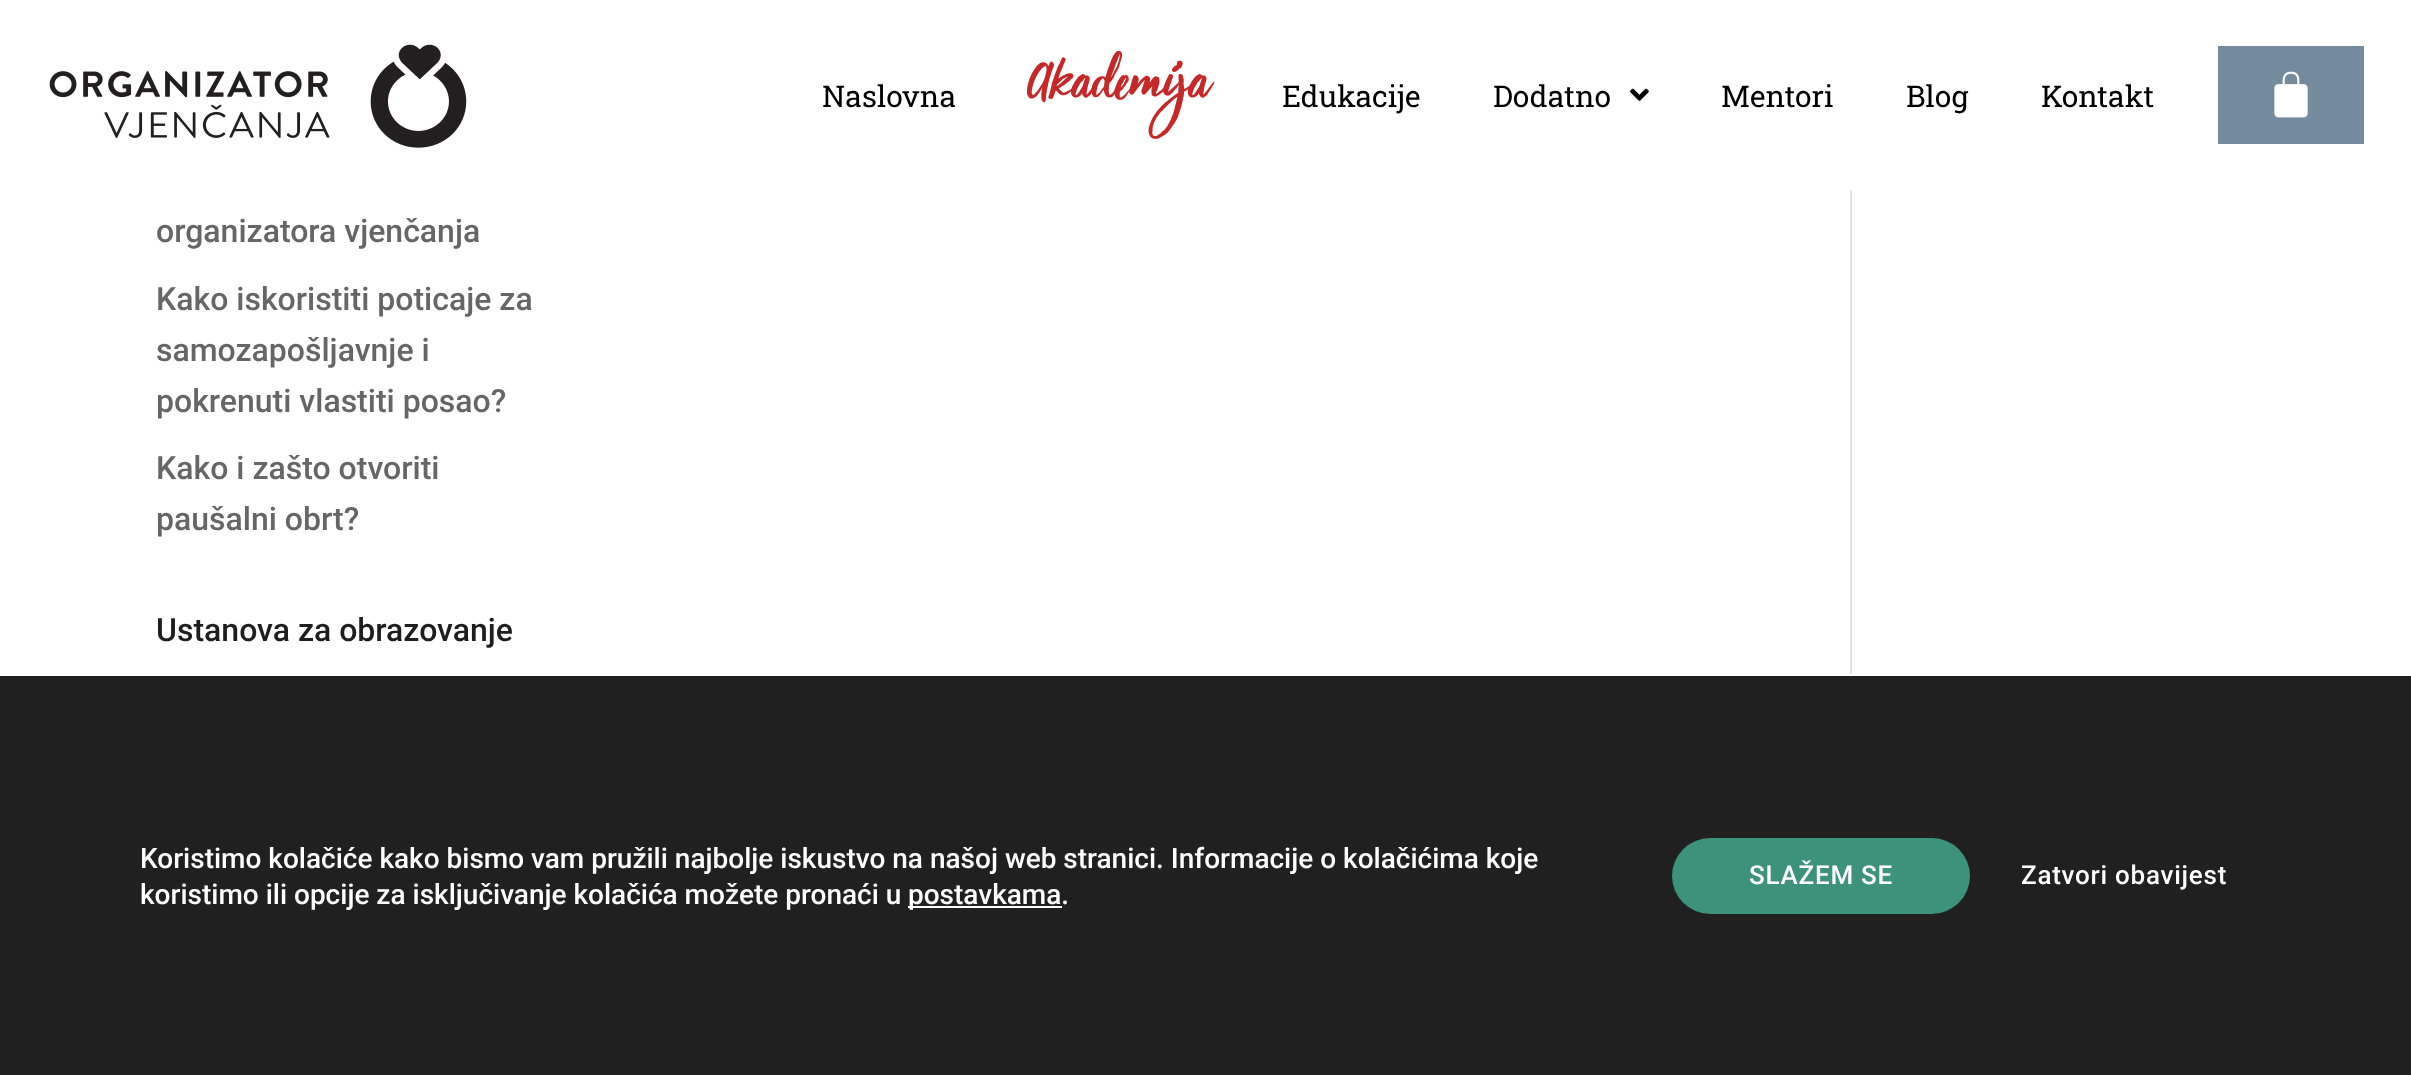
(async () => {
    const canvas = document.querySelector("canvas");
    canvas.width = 2411;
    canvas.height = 1075;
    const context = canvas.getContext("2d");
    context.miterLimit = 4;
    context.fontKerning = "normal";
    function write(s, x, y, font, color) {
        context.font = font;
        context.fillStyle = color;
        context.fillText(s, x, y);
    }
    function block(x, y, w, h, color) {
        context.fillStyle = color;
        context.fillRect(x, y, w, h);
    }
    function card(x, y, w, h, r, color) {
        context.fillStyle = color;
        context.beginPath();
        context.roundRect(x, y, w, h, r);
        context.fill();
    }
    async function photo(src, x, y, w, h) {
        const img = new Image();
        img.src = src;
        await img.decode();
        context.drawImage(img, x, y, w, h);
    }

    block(0, 0, 2411, 1075, "rgb(255, 255, 255)");
    await photo("media/1.png", 49, 44, 418, 104);
    write("Naslovna", 822, 107, "30px Roboto Slab", "rgb(0, 0, 0)");
    write("Akademija", 1028, 96, "60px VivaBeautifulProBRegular", "rgb(198, 40, 40)");
    write("Edukacije", 1282, 107, "30px Roboto Slab", "rgb(0, 0, 0)");
    write("Dodatno", 1493, 107, "30px Roboto Slab", "rgb(0, 0, 0)");
    await photo("media/2.png", 1630, 88, 19, 13);
    write("Mentori", 1721, 107, "30px Roboto Slab", "rgb(0, 0, 0)");
    write("Blog", 1906, 107, "30px Roboto Slab", "rgb(0, 0, 0)");
    write("Kontakt", 2041, 107, "30px Roboto Slab", "rgb(0, 0, 0)");
    block(2218, 46, 146, 98, "rgb(116, 139, 158)");
    await photo("media/3.png", 2274, 71, 34, 47);
    write("organizatora vjenčanja", 156, 242, "500 32px Roboto", "rgb(102, 102, 102)");
    write("Kako iskoristiti poticaje za", 156, 310, "500 32px Roboto", "rgb(102, 102, 102)");
    write("samozapošljavnje i", 156, 361, "500 32px Roboto", "rgb(102, 102, 102)");
    write("pokrenuti vlastiti posao?", 156, 412, "500 32px Roboto", "rgb(102, 102, 102)");
    write("Kako i zašto otvoriti", 156, 479, "500 32px Roboto", "rgb(102, 102, 102)");
    write("paušalni obrt?", 156, 530, "500 32px Roboto", "rgb(102, 102, 102)");
    write("Ustanova za obrazovanje", 156, 641, "500 32px Roboto", "rgb(30, 30, 30)");
    block(1850, 190, 2, 484, "rgb(226, 226, 226)");
    block(0, 676, 2411, 399, "rgb(32, 32, 32)");
    write("Koristimo kolačiće kako bismo vam pružili najbolje iskustvo na našoj web stranici. Informacije o kolačićima koje", 140, 868, "500 28px Roboto", "rgb(255, 255, 255)");
    write("koristimo ili opcije za isključivanje kolačića možete pronaći u", 140, 904, "500 28px Roboto", "rgb(255, 255, 255)");
    block(908, 906, 154, 2, "rgb(255, 255, 255)");
    write("postavkama.", 908, 904, "500 28px Roboto", "rgb(255, 255, 255)");
    card(1672, 838, 298, 76, 38, "rgb(61, 146, 124)");
    context.letterSpacing = "0.75px";
    write("SLAŽEM SE", 1749, 884, "500 26px Roboto", "rgb(255, 255, 255)");
    write("Zatvori obavijest", 2021, 884, "500 26px Roboto", "rgb(255, 255, 255)");
})();
